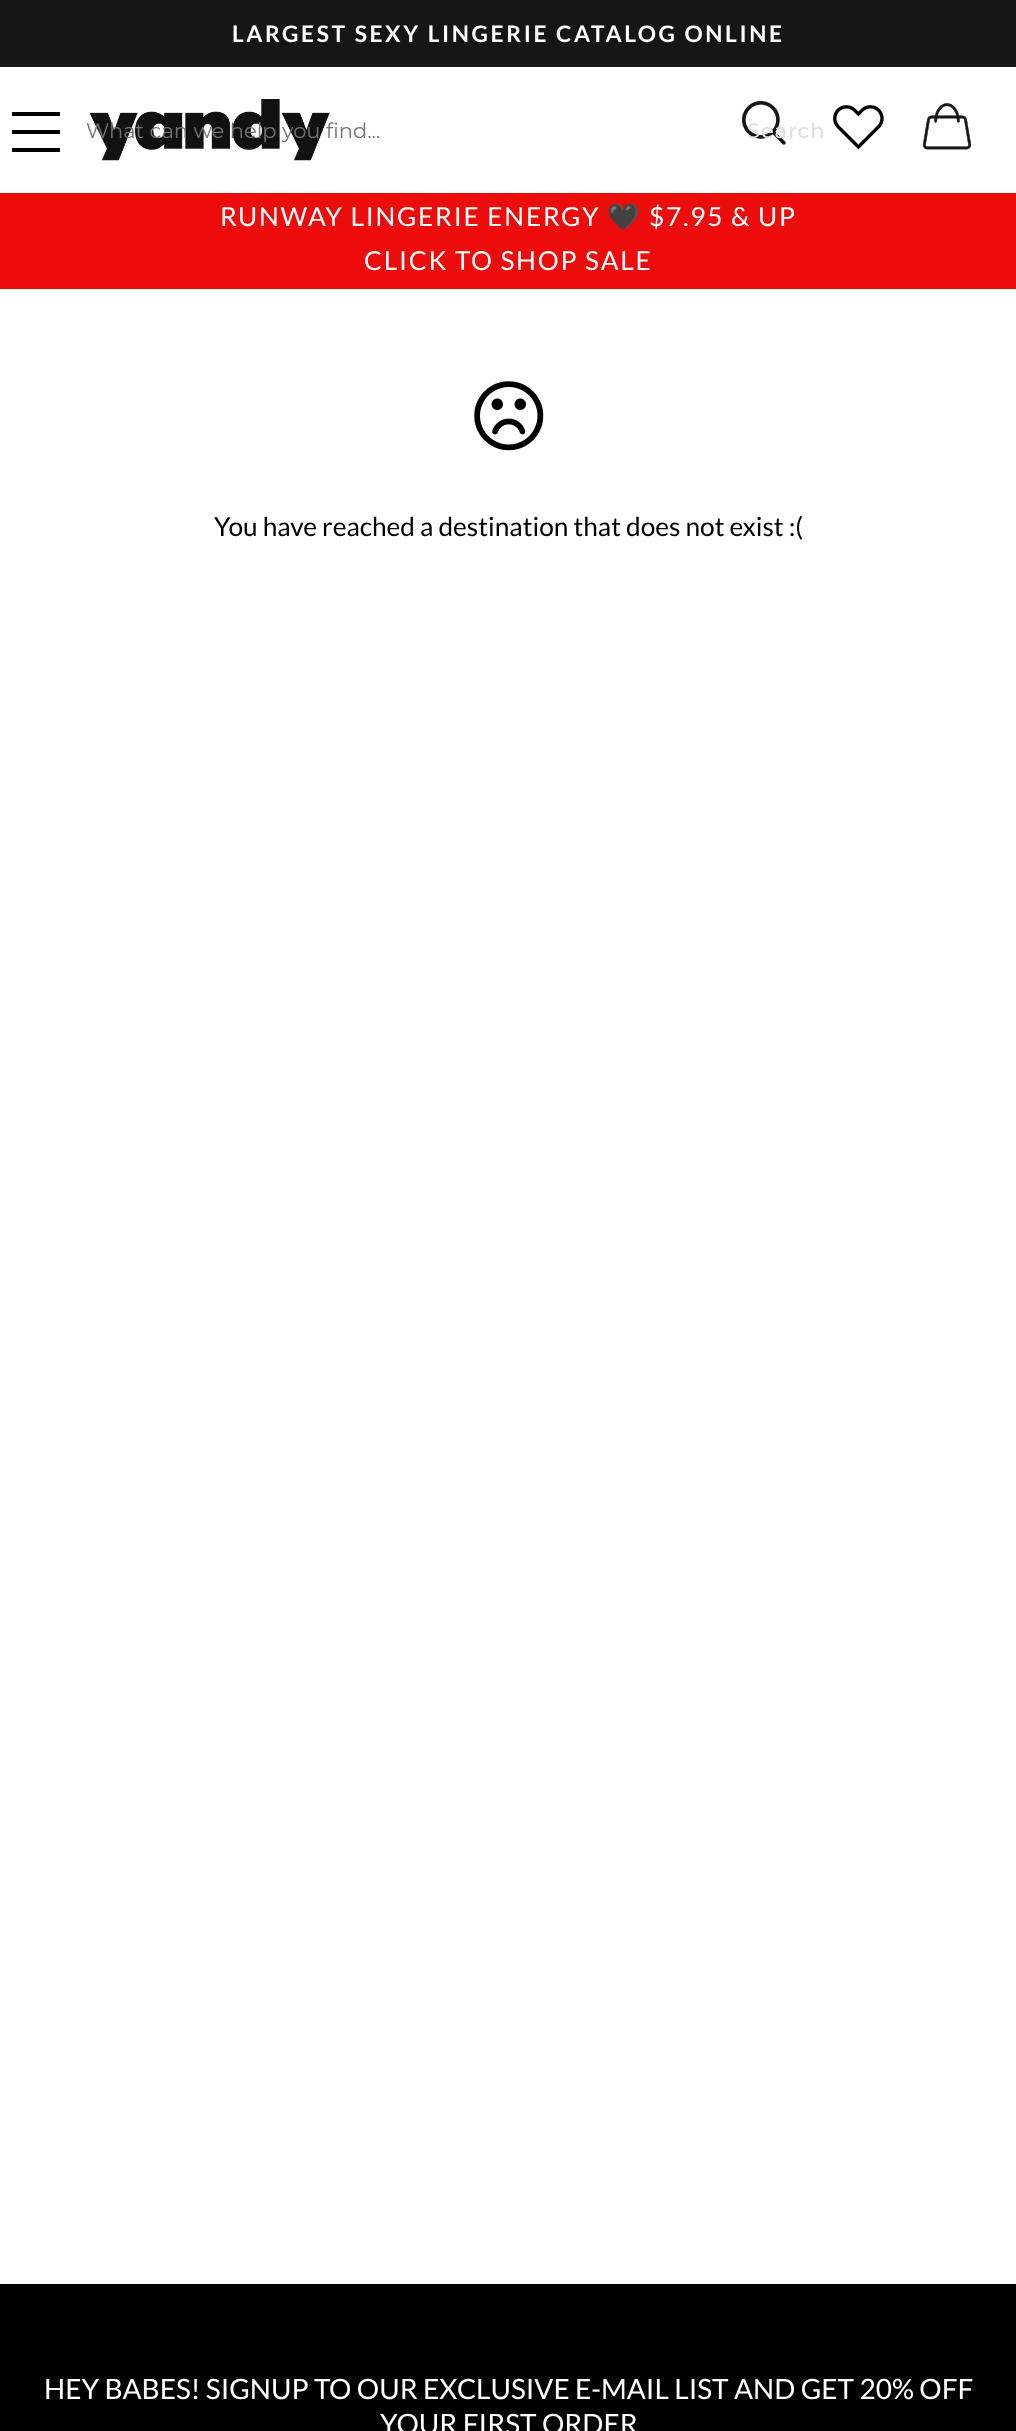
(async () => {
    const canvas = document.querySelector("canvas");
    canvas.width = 1016;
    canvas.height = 2431;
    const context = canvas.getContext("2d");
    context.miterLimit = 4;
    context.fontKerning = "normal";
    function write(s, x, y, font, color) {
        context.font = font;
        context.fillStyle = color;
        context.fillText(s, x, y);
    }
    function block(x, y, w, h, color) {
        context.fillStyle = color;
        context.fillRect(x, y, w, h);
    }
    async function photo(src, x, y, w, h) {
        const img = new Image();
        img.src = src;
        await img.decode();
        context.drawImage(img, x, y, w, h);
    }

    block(0, 0, 1016, 2431, "rgb(255, 255, 255)");
    block(0, 0, 1016, 67, "rgb(22, 22, 22)");
    context.letterSpacing = "2.6px";
    write("LARGEST SEXY LINGERIE CATALOG ONLINE", 232, 42, "bold 22.75px Lato", "rgb(255, 255, 255)");
    context.save();
    context.beginPath();
    context.rect(4, 96, 56, 56);
    context.clip();
    context.fillStyle = "rgb(0, 0, 0)";
    context.beginPath();
    context.moveTo(12, 112);
    context.lineTo(12, 116);
    context.lineTo(66, 116);
    context.lineTo(66, 112);
    context.closePath();
    context.moveTo(12, 130);
    context.lineTo(12, 134);
    context.lineTo(66, 134);
    context.lineTo(66, 130);
    context.closePath();
    context.moveTo(12, 148);
    context.lineTo(12, 152);
    context.lineTo(66, 152);
    context.lineTo(66, 148);
    context.closePath();
    context.fill();
    context.restore();
    await photo("media/1.png", 89, 99, 241, 62);
    await photo("media/2.png", 742, 101, 44, 44);
    await photo("media/3.png", 833, 105, 51, 45);
    await photo("media/4.png", 922, 103, 50, 47);
    context.letterSpacing = "0px";
    write("What can we help you find...", 86, 138, "21px Montserrat", "rgb(115, 115, 115)");
    context.letterSpacing = "1px";
    write("Search", 747, 138, "500 21px Montserrat", "rgb(222, 222, 222)");
    block(0, 193, 1016, 96, "rgb(237, 12, 12)");
    context.letterSpacing = "1.75px";
    write("RUNWAY LINGERIE ENERGY", 220, 226, "26.25px Lato", "rgb(255, 255, 255)");
    write("🖤", 607, 226, "26.25px Noto Color Emoji", "rgb(255, 255, 255)");
    write("$7.95 & UP", 649, 226, "26.25px Lato", "rgb(255, 255, 255)");
    write("CLICK TO SHOP SALE", 364, 270, "26.25px Lato", "rgb(255, 255, 255)");
    await photo("media/5.png", 474, 381, 70, 70);
    context.letterSpacing = "0px";
    write("You have reached a destination that does not exist :(", 214, 536, "26.25px Lato", "rgb(0, 0, 0)");
    block(0, 2284, 1016, 147, "rgb(0, 0, 0)");
    write("HEY BABES! SIGNUP TO OUR EXCLUSIVE E-MAIL LIST AND GET 20% OFF", 44, 2399, "28px Lato", "rgb(255, 255, 255)");
    write("YOUR FIRST ORDER", 380, 2434, "28px Lato", "rgb(255, 255, 255)");
})();
